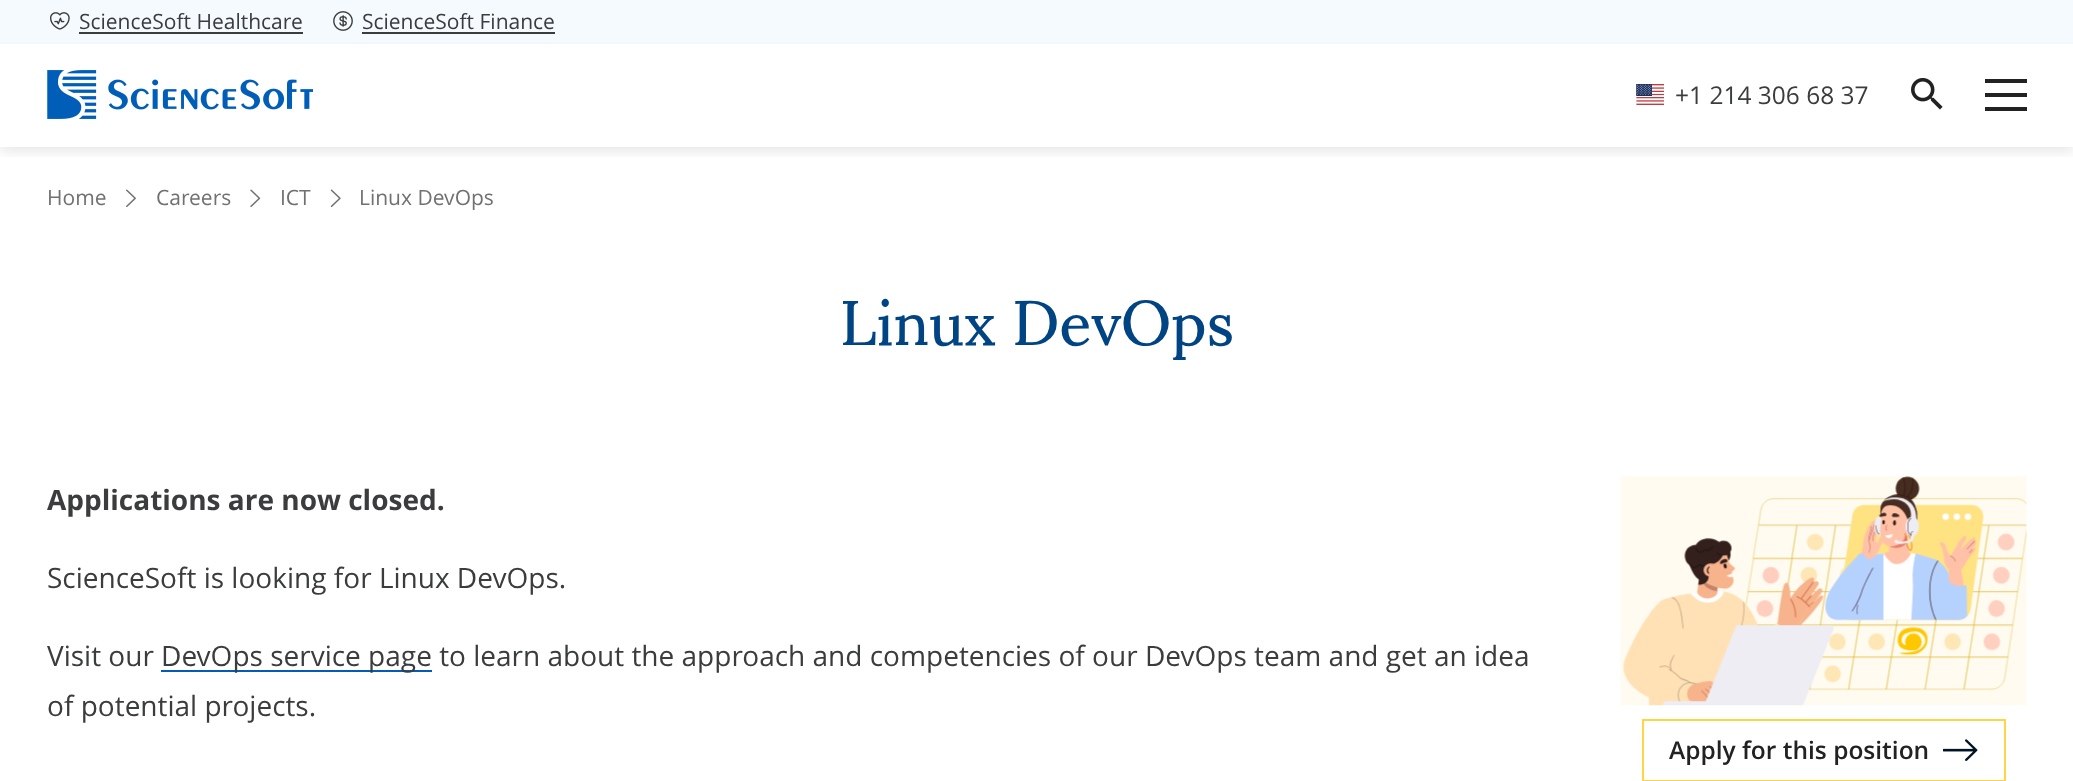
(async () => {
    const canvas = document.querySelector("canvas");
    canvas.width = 2073;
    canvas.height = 781;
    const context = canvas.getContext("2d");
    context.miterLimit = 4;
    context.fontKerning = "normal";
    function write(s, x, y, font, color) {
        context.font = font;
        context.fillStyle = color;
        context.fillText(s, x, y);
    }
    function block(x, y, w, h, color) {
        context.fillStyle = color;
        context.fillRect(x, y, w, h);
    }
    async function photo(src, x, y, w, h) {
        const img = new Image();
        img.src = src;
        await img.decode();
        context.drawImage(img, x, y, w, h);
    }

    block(0, 0, 2073, 781, "rgb(255, 255, 255)");
    context.save();
    context.beginPath();
    context.rect(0, 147, 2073, 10);
    context.clip();
    context.fillStyle = "rgba(0, 0, 0, 0.1)";
    context.filter = "blur(7px)";
    context.beginPath();
    context.rect(0, 4, 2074, 147);
    context.fill();
    context.filter = "none";
    context.restore();
    context.fillStyle = "rgb(240, 247, 255)";
    context.beginPath();
    context.moveTo(0, 42);
    context.lineTo(0, 44);
    context.lineTo(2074, 44);
    context.lineTo(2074, 2);
    context.lineTo(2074, 42);
    context.closePath();
    context.fill();
    block(0, 0, 2073, 42, "rgb(245, 250, 255)");
    await photo("media/1.png", 50, 12, 20, 18);
    write("ScienceSoft Healthcare", 79, 29, "21px Open Sans", "rgb(59, 60, 61)");
    block(79, 32, 224, 2, "rgb(59, 60, 61)");
    await photo("media/2.png", 333, 11, 20, 20);
    write("ScienceSoft Finance", 362, 29, "21px Open Sans", "rgb(59, 60, 61)");
    block(362, 32, 193, 2, "rgb(59, 60, 61)");
    await photo("media/3.png", 47, 70, 266, 49);
    await photo("media/4.png", 1636, 84, 28, 21);
    write("+1 214 306 68 37", 1675, 104, "24.5px Open Sans", "rgb(59, 60, 61)");
    await photo("media/5.png", 1911, 78, 32, 32);
    block(1985, 79, 42, 4, "rgb(34, 34, 34)");
    block(1985, 107, 42, 4, "rgb(34, 34, 34)");
    block(1985, 93, 42, 4, "rgb(34, 34, 34)");
    write("Home", 47, 205, "21px Open Sans", "rgb(113, 113, 113)");
    await photo("media/6.png", 126, 189, 10, 18);
    write("Careers", 156, 205, "21px Open Sans", "rgb(113, 113, 113)");
    await photo("media/7.png", 250, 189, 11, 18);
    write("ICT", 280, 205, "21px Open Sans", "rgb(113, 113, 113)");
    await photo("media/8.png", 330, 189, 11, 18);
    write("Linux DevOps", 359, 205, "21px Open Sans", "rgb(113, 113, 113)");
    write("Linux DevOps", 840, 345, "63px Sumana", "rgb(0, 68, 132)");
    write("Applications are now closed.", 47, 510, "bold 28px Open Sans", "rgb(59, 60, 61)");
    write("ScienceSoft is looking for Linux DevOps.", 47, 588, "28px Open Sans", "rgb(59, 60, 61)");
    write("Visit our", 47, 666, "28px Open Sans", "rgb(59, 60, 61)");
    block(161, 670, 271, 2, "rgb(0, 94, 184)");
    write("DevOps service page to learn about the approach and competencies of our DevOps team and get an idea", 161, 666, "28px Open Sans", "rgb(59, 60, 61)");
    write("of potential projects.", 47, 716, "28px Open Sans", "rgb(59, 60, 61)");
    await photo("media/9.png", 1620, 476, 407, 230);
    context.strokeStyle = "rgb(255, 213, 70)";
    context.lineWidth = 2;
    context.strokeRect(1643, 720, 362, 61);
    write("Apply for this position", 1669, 759, "600 24.5px Open Sans", "rgb(34, 34, 34)");
    await photo("media/10.png", 1943, 739, 35, 22);
})();
